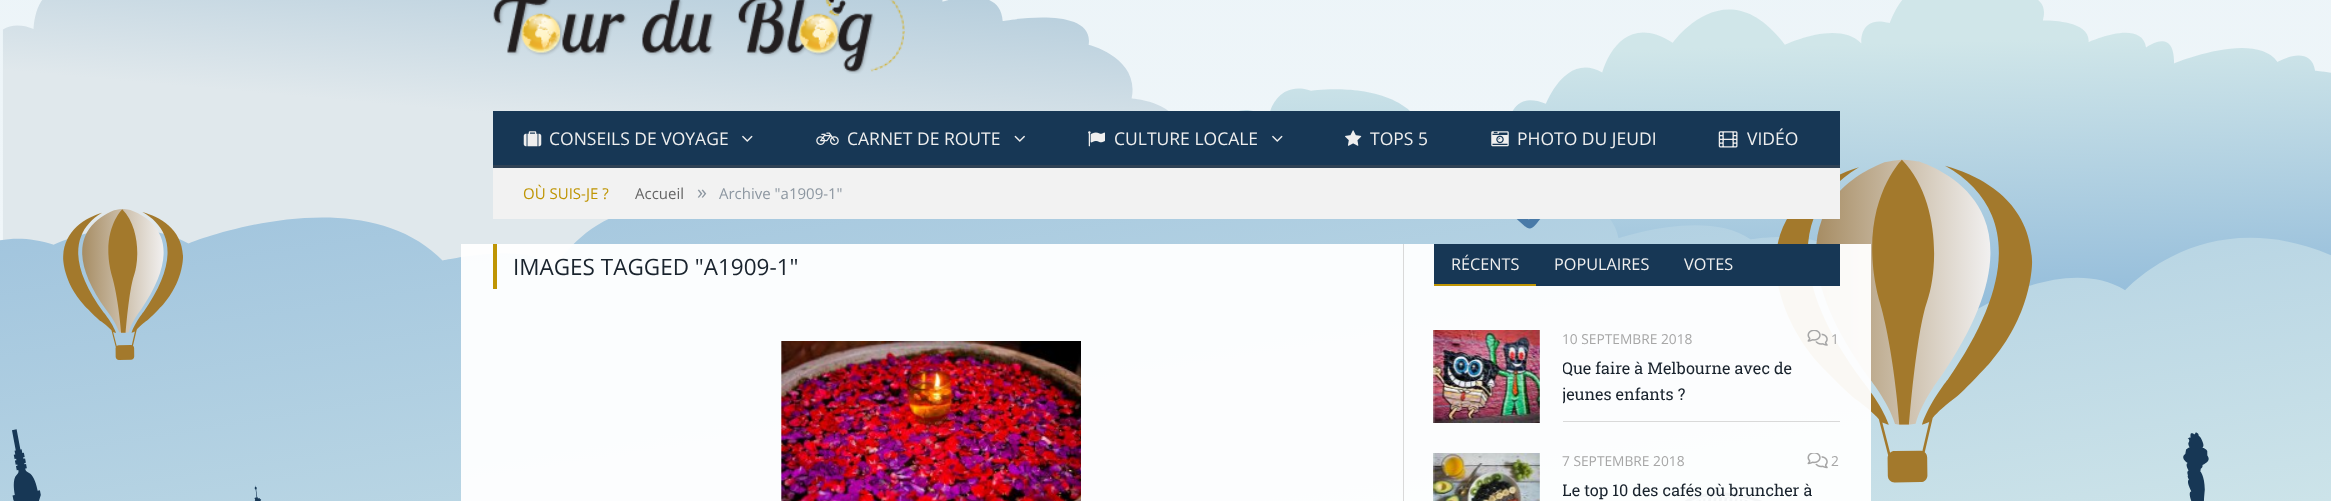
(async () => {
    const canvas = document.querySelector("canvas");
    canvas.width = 2331;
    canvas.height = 501;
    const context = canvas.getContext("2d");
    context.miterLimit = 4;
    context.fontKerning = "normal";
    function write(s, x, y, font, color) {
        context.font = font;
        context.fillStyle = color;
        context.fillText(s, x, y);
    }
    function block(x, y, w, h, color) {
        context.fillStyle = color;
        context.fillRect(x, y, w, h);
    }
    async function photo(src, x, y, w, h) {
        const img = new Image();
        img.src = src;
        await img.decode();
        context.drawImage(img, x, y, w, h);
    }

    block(0, 0, 2331, 501, "rgb(252, 254, 255)");
    await photo("media/1.png", 0, 0, 2331, 501);
    await photo("media/2.png", 493, 0, 412, 74);
    block(493, 111, 1347, 54, "rgb(23, 55, 85)");
    block(493, 165, 1347, 3, "rgb(47, 65, 84)");
    await photo("media/3.png", 523, 131, 19, 16);
    write("CONSEILS DE VOYAGE", 549, 145, "17.5px Open Sans", "rgb(239, 239, 239)");
    await photo("media/4.png", 742, 135, 11, 7);
    await photo("media/5.png", 816, 132, 23, 13);
    write("CARNET DE ROUTE", 847, 145, "17.5px Open Sans", "rgb(239, 239, 239)");
    await photo("media/6.png", 1014, 135, 11, 7);
    await photo("media/7.png", 1088, 131, 17, 16);
    write("CULTURE LOCALE", 1114, 145, "17.5px Open Sans", "rgb(239, 239, 239)");
    await photo("media/4.png", 1272, 135, 11, 7);
    await photo("media/8.png", 1345, 130, 17, 16);
    write("TOPS 5", 1370, 145, "17.5px Open Sans", "rgb(239, 239, 239)");
    await photo("media/9.png", 1491, 131, 18, 16);
    write("PHOTO DU JEUDI", 1517, 145, "17.5px Open Sans", "rgb(239, 239, 239)");
    await photo("media/10.png", 1718, 131, 20, 17);
    write("VIDÉO", 1747, 145, "17.5px Open Sans", "rgb(239, 239, 239)");
    block(493, 168, 1347, 51, "rgb(242, 242, 242)");
    write("OÙ SUIS-JE ?", 523, 199, "15px Open Sans", "rgb(191, 149, 4)");
    write("Accueil", 635, 199, "15px Open Sans", "rgb(101, 101, 101)");
    write("»", 697, 199, "20px Open Sans", "rgb(141, 151, 161)");
    write("Archive \"a1909-1\"", 719, 199, "15px Open Sans", "rgb(141, 151, 161)");
    block(461, 244, 1410, 257, "rgba(255, 255, 255, 0.95)");
    block(493, 244, 4, 45, "rgb(191, 149, 4)");
    write("IMAGES TAGGED \"A1909-1\"", 513, 275, "22.5px Open Sans", "rgb(25, 35, 45)");
    await photo("media/11.png", 781, 341, 300, 160);
    block(1403, 244, 1, 257, "rgb(217, 217, 217)");
    block(1434, 244, 406, 42, "rgb(23, 55, 85)");
    block(1434, 284, 102, 2, "rgb(191, 149, 4)");
    write("RÉCENTS", 1451, 270, "16.25px Open Sans", "rgb(239, 239, 239)");
    write("POPULAIRES", 1554, 270, "16.25px Open Sans", "rgb(239, 239, 239)");
    write("VOTES", 1684, 270, "16.25px Open Sans", "rgb(239, 239, 239)");
    await photo("media/12.png", 1433, 330, 107, 93);
    block(1563, 421, 277, 1, "rgb(217, 217, 217)");
    write("10 SEPTEMBRE 2018", 1562, 344, "13.75px Open Sans", "rgb(166, 166, 166)");
    await photo("media/13.png", 1807, 330, 21, 16);
    write("1", 1831, 344, "13.75px Open Sans", "rgb(166, 166, 166)");
    context.save();
    context.beginPath();
    context.rect(1563, 330, 277, 91);
    context.clip();
    write("Que faire à Melbourne avec de", 1562, 374, "16.25px Roboto Slab", "rgb(25, 35, 45)");
    write("jeunes enfants ?", 1562, 400, "16.25px Roboto Slab", "rgb(25, 35, 45)");
    context.restore();
    await photo("media/14.png", 1433, 453, 107, 48);
    write("7 SEPTEMBRE 2018", 1562, 466, "13.75px Open Sans", "rgb(166, 166, 166)");
    await photo("media/15.png", 1807, 453, 21, 16);
    write("2", 1831, 466, "13.75px Open Sans", "rgb(166, 166, 166)");
    context.save();
    context.beginPath();
    context.rect(1563, 453, 277, 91);
    context.clip();
    write("Le top 10 des cafés où bruncher à", 1562, 496, "16.25px Roboto Slab", "rgb(25, 35, 45)");
    context.restore();
})();
